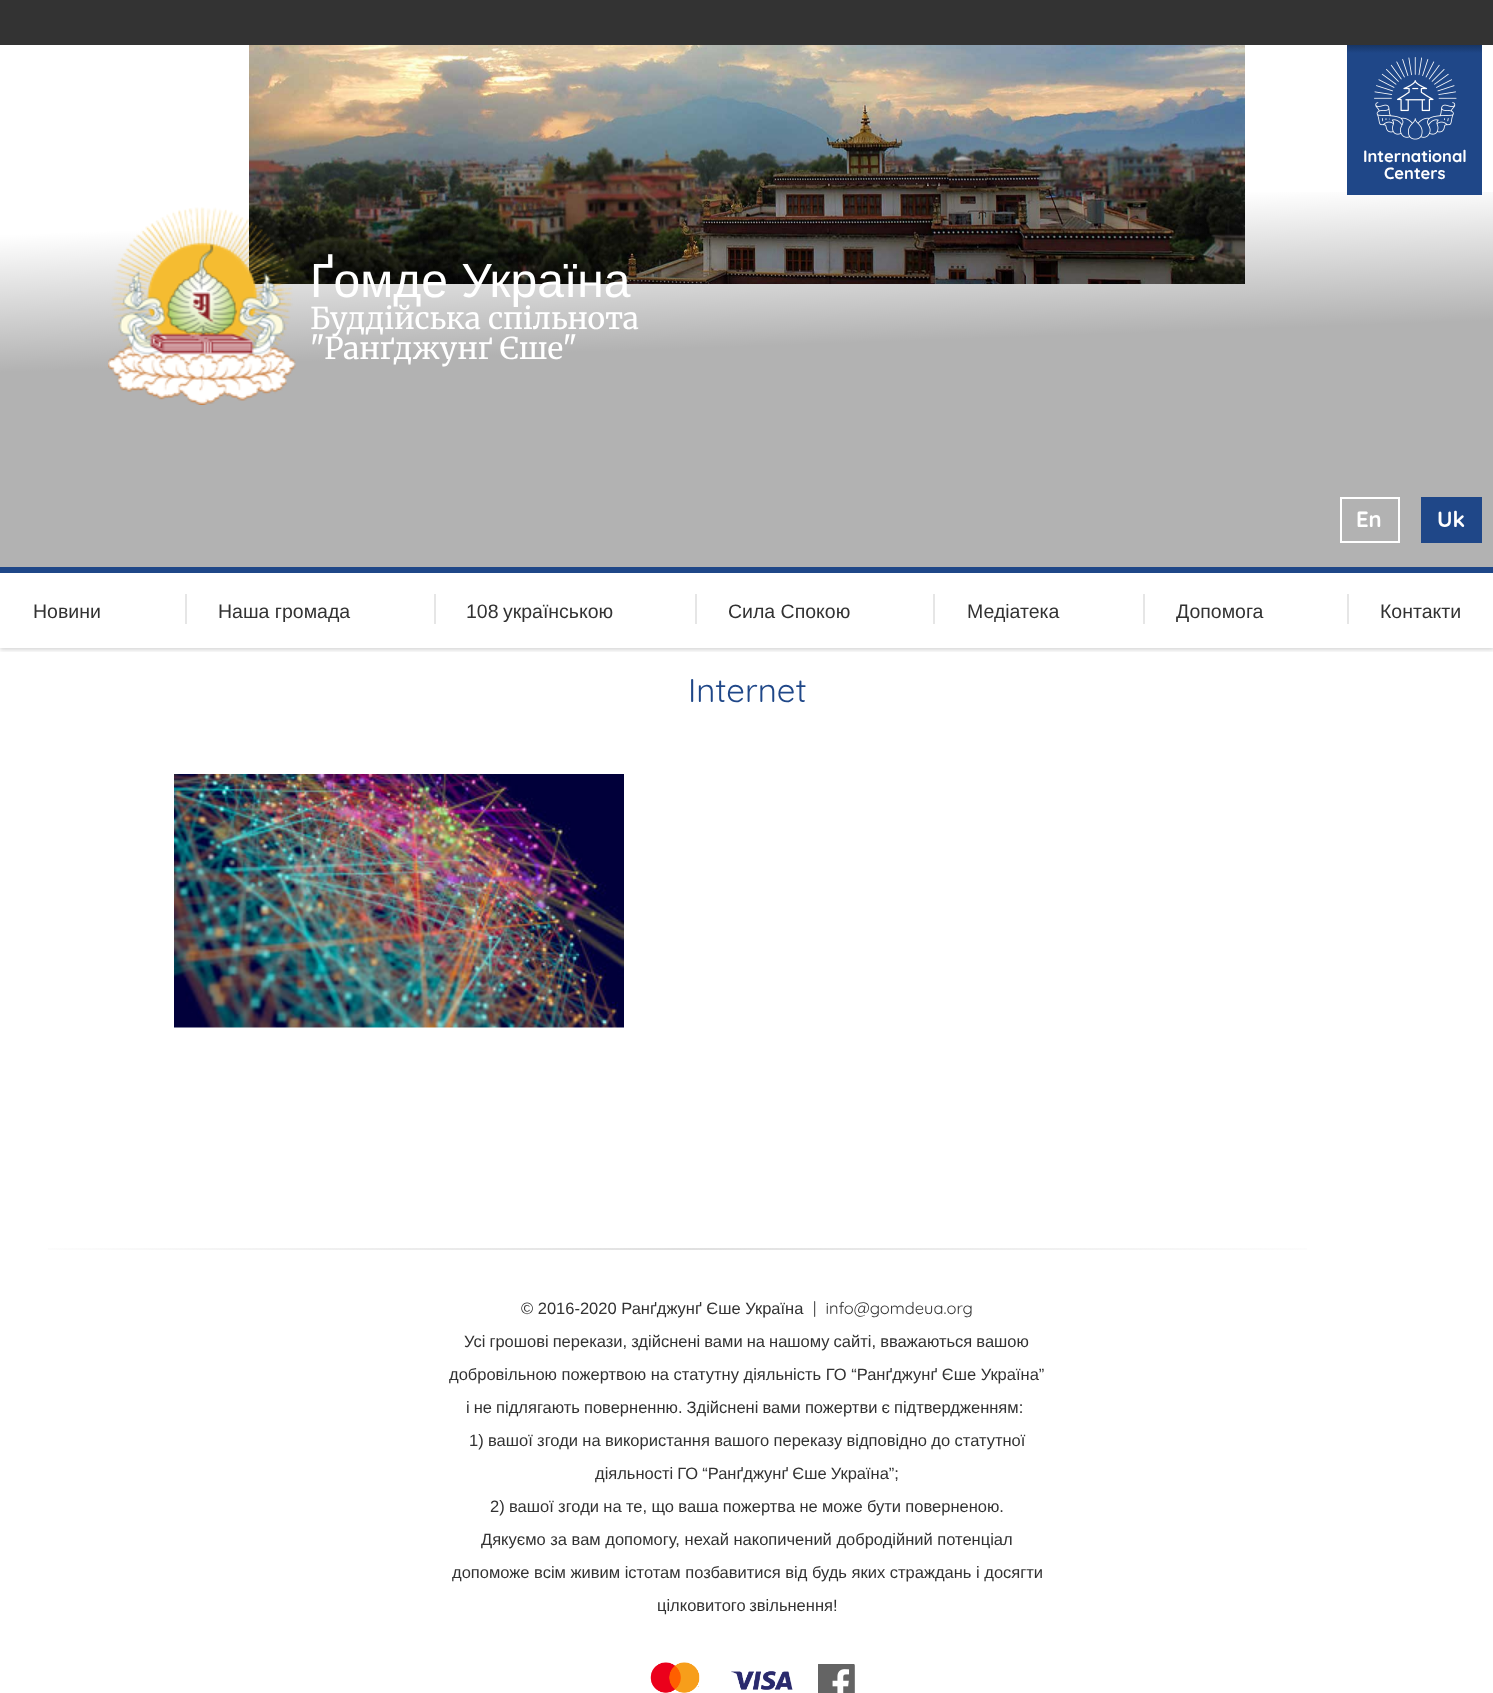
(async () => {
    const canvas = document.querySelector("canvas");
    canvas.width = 1493;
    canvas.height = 1693;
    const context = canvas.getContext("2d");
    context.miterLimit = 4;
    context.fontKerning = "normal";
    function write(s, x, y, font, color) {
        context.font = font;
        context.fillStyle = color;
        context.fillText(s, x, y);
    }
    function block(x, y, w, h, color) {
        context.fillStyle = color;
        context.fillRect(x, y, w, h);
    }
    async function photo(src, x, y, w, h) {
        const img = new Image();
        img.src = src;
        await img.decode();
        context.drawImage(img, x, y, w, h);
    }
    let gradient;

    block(0, 0, 1493, 1693, "rgb(255, 255, 255)");
    block(0, 0, 1493, 45, "rgb(51, 51, 51)");
    await photo("media/1.png", 249, 45, 996, 239);
    gradient = context.createLinearGradient(737, 19, 757, 593);
    gradient.addColorStop(0.33, "rgba(0, 0, 0, 0)");
    gradient.addColorStop(0.57, "rgba(0, 0, 0, 0.3)");
    gradient.addColorStop(1, "rgba(0, 0, 0, 0.3)");
    context.fillStyle = gradient;
    context.fillRect(0, 192, 1493, 375);
    block(1347, 66, 135, 129, "rgb(31, 71, 136)");
    gradient = context.createLinearGradient(1415, 45, 1415, 53);
    gradient.addColorStop(0, "rgb(23, 53, 102)");
    gradient.addColorStop(1, "rgb(31, 71, 136)");
    context.fillStyle = gradient;
    context.fillRect(1347, 45, 135, 21);
    await photo("media/2.png", 1374, 57, 83, 83);
    write("International", 1363, 162, "bold 16.5px Quicksand", "rgb(255, 255, 255)");
    write("Centers", 1384, 179, "bold 16.5px Quicksand", "rgb(255, 255, 255)");
    await photo("media/3.png", 108, 207, 188, 198);
    write("Ґомде Україна", 310, 297, "48px Liberation Sans", "rgb(255, 255, 255)");
    write("Буддійська спільнота", 310, 329, "30px Merriweather", "rgb(255, 255, 255)");
    write("\"Ранґджунґ Єше\"", 310, 359, "30px Merriweather", "rgb(255, 255, 255)");
    context.strokeStyle = "rgb(255, 255, 255)";
    context.lineWidth = 2;
    context.strokeRect(1341, 498, 58, 44);
    write("En", 1356, 527, "bold 22px Quicksand", "rgb(255, 255, 255)");
    block(1421, 497, 61, 46, "rgb(31, 71, 136)");
    write("Uk", 1437, 527, "bold 22px Quicksand", "rgb(255, 255, 255)");
    context.save();
    context.beginPath();
    context.rect(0, 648, 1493, 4);
    context.clip();
    context.fillStyle = "rgba(0, 0, 0, 0.16)";
    context.filter = "blur(2px)";
    context.beginPath();
    context.rect(0, 569, 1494, 81);
    context.fill();
    context.filter = "none";
    context.restore();
    block(0, 567, 1493, 6, "rgb(31, 71, 136)");
    write("Новини", 33, 618, "19.5px Liberation Sans", "rgb(50, 50, 50)");
    block(185, 594, 2, 30, "rgb(230, 230, 230)");
    write("Наша громада", 218, 618, "19.5px Liberation Sans", "rgb(50, 50, 50)");
    block(434, 594, 2, 30, "rgb(230, 230, 230)");
    context.wordSpacing = "-1px";
    write("108 українською", 466, 618, "19.5px Liberation Sans", "rgb(50, 50, 50)");
    block(695, 594, 2, 30, "rgb(230, 230, 230)");
    context.wordSpacing = "0px";
    write("Сила Спокою", 728, 618, "19.5px Liberation Sans", "rgb(50, 50, 50)");
    block(933, 594, 2, 30, "rgb(230, 230, 230)");
    write("Медіатека", 967, 618, "19.5px Liberation Sans", "rgb(50, 50, 50)");
    block(1143, 594, 2, 30, "rgb(230, 230, 230)");
    write("Допомога", 1176, 618, "19.5px Liberation Sans", "rgb(50, 50, 50)");
    block(1347, 594, 2, 30, "rgb(230, 230, 230)");
    write("Контакти", 1380, 618, "19.5px Liberation Sans", "rgb(50, 50, 50)");
    write("Internet", 688, 702, "33px Quicksand", "rgb(31, 71, 136)");
    await photo("media/4.png", 174, 774, 450, 254);
    gradient = context.createLinearGradient(1307, 1249, 48, 1249);
    gradient.addColorStop(0, "rgb(252, 252, 252)");
    gradient.addColorStop(0.49, "rgb(224, 224, 224)");
    gradient.addColorStop(1, "rgb(252, 252, 252)");
    context.fillStyle = gradient;
    context.fillRect(48, 1248, 1259, 2);
    write("© 2016-2020 Ранґджунґ Єше Україна", 521, 1314, "16.5px Liberation Sans", "rgb(50, 50, 50)");
    write("|  info@gomdeua.org", 813, 1314, "16.5px Quicksand", "rgb(50, 50, 50)");
    context.wordSpacing = "-0.5px";
    write("Усі грошові перекази, здійснені вами на нашому сайті, вважаються вашою", 464, 1347, "16.5px Liberation Sans", "rgb(50, 50, 50)");
    context.wordSpacing = "0px";
    write("добровільною пожертвою на статутну діяльність ГО “Ранґджунґ Єше Україна”", 449, 1380, "16.5px Liberation Sans", "rgb(50, 50, 50)");
    context.wordSpacing = "-0.5px";
    write("і не підлягають поверненню. Здійснені вами пожертви є підтвердженням:", 466, 1413, "16.5px Liberation Sans", "rgb(50, 50, 50)");
    context.wordSpacing = "-0.25px";
    write("1) вашої згоди на використання вашого переказу відповідно до статутної", 469, 1446, "16.5px Liberation Sans", "rgb(50, 50, 50)");
    context.wordSpacing = "-0.5px";
    write("діяльності ГО “Ранґджунґ Єше Україна”;", 595, 1479, "16.5px Liberation Sans", "rgb(50, 50, 50)");
    context.wordSpacing = "-0.25px";
    write("2) вашої згоди на те, що ваша пожертва не може бути поверненою.", 490, 1512, "16.5px Liberation Sans", "rgb(50, 50, 50)");
    context.wordSpacing = "0px";
    write("Дякуємо за вам допомогу, нехай накопичений добродійний потенціал", 481, 1545, "16.5px Liberation Sans", "rgb(50, 50, 50)");
    write("допоможе всім живим істотам позбавитися від будь яких страждань і досягти", 452, 1578, "16.5px Liberation Sans", "rgb(50, 50, 50)");
    context.wordSpacing = "-1px";
    write("цілковитого звільнення!", 657, 1611, "16.5px Liberation Sans", "rgb(50, 50, 50)");
    await photo("media/5.png", 650, 1662, 143, 31);
    await photo("media/6.png", 818, 1664, 37, 29);
})();
